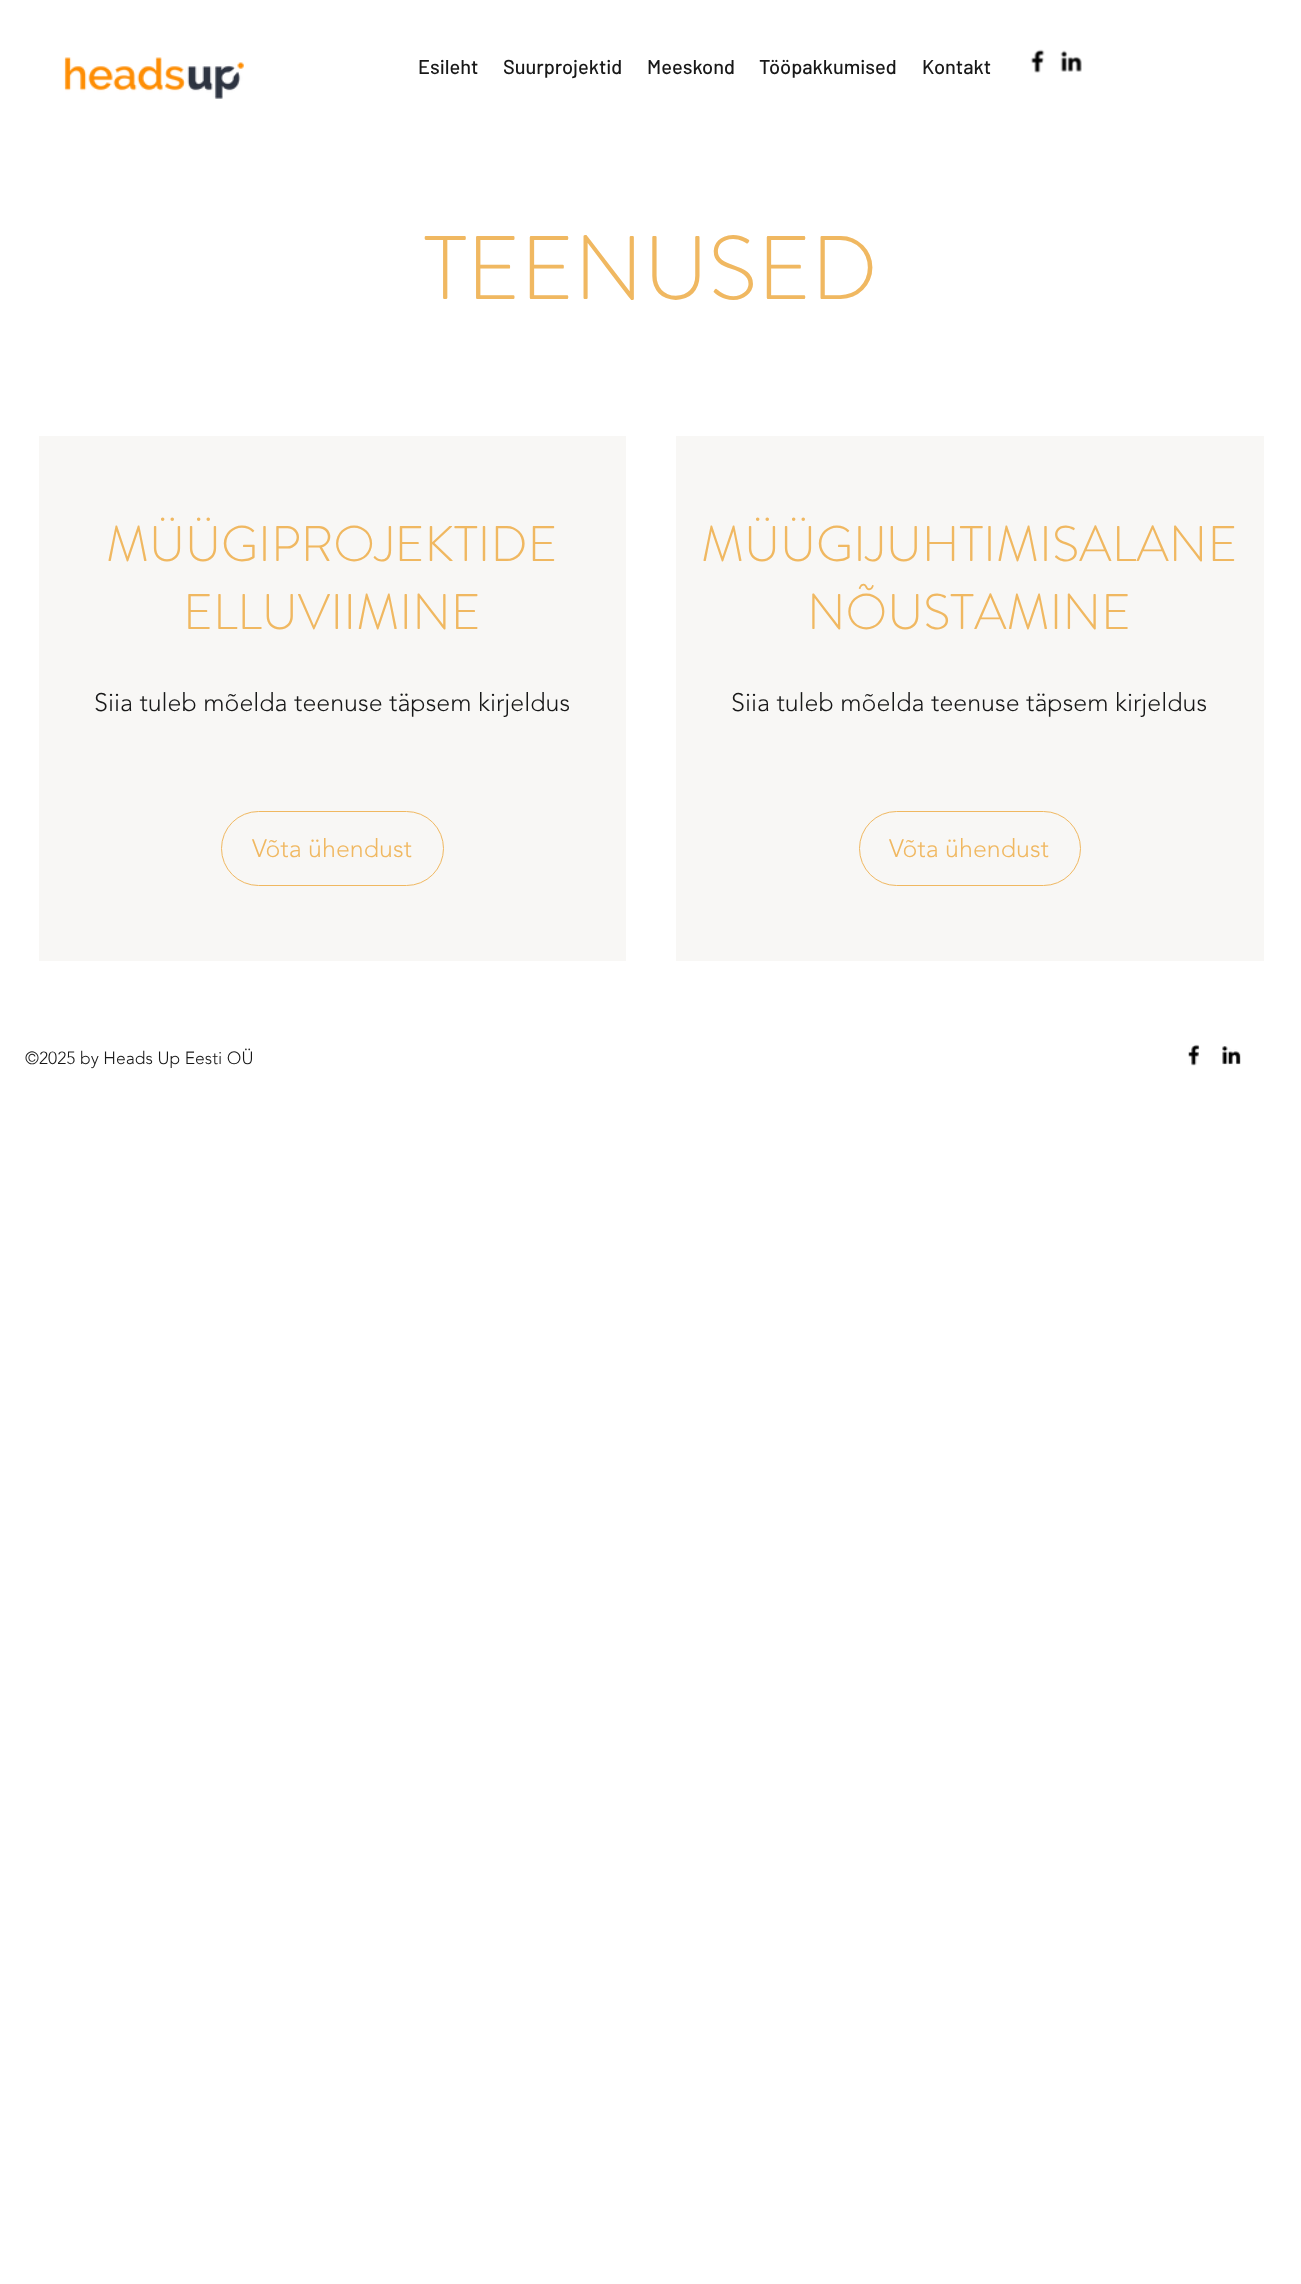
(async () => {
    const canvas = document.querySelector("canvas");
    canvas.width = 1301;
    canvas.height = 2284;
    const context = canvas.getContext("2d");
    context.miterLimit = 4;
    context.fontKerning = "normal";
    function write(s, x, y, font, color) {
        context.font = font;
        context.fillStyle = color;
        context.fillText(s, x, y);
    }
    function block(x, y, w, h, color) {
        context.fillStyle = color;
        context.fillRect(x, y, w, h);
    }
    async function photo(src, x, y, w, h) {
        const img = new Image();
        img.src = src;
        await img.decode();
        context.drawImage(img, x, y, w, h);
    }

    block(0, 0, 1301, 2284, "rgb(255, 255, 255)");
    await photo("media/1.png", 64, 57, 180, 42);
    write("Esileht", 418, 74, "500 20px Barlow", "rgb(24, 24, 24)");
    write("Suurprojektid", 503, 74, "500 20px Barlow", "rgb(24, 24, 24)");
    write("Meeskond", 647, 74, "500 20px Barlow", "rgb(24, 24, 24)");
    write("Tööpakkumised", 759, 74, "500 20px Barlow", "rgb(24, 24, 24)");
    write("Kontakt", 922, 74, "500 20px Barlow", "rgb(24, 24, 24)");
    await photo("media/2.png", 1030, 49, 15, 24);
    await photo("media/3.png", 1060, 50, 22, 22);
    write("TEENUSED", 424, 299, "300 90px 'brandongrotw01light'", "rgb(240, 184, 97)");
    block(39, 436, 587, 525, "rgb(248, 247, 245)");
    write("MÜÜGIPROJEKTIDE", 106, 561, "300 50px 'brandongrotw01light'", "rgb(240, 184, 97)");
    write("ELLUVIIMINE", 183, 629, "300 50px 'brandongrotw01light'", "rgb(240, 184, 97)");
    write("Siia tuleb mõelda teenuse täpsem kirjeldus", 94, 711, "300 25px 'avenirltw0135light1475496'", "rgb(24, 24, 24)");
    context.beginPath();
    context.roundRect(221.5, 811.5, 222, 74, 37);
    context.strokeStyle = "rgb(240, 184, 97)";
    context.stroke();
    write("Võta ühendust", 252, 857, "300 25px 'avenirltw0135light1475496'", "rgb(240, 184, 97)");
    block(676, 436, 588, 525, "rgb(248, 247, 245)");
    write("MÜÜGIJUHTIMISALANE", 701, 561, "300 50px 'brandongrotw01light'", "rgb(240, 184, 97)");
    write("NÕUSTAMINE", 807, 629, "300 50px 'brandongrotw01light'", "rgb(240, 184, 97)");
    write("Siia tuleb mõelda teenuse täpsem kirjeldus", 731, 711, "300 25px 'avenirltw0135light1475496'", "rgb(24, 24, 24)");
    context.beginPath();
    context.roundRect(859.5, 811.5, 221, 74, 37);
    context.stroke();
    write("Võta ühendust", 889, 857, "300 25px 'avenirltw0135light1475496'", "rgb(240, 184, 97)");
    write("©2025 by Heads Up Eesti OÜ", 25, 1064, "300 17.5px 'avenirltw0135light1475496'", "rgb(24, 24, 24)");
    await photo("media/4.png", 1188, 1044, 12, 22);
    await photo("media/5.png", 1222, 1046, 19, 19);
})();
